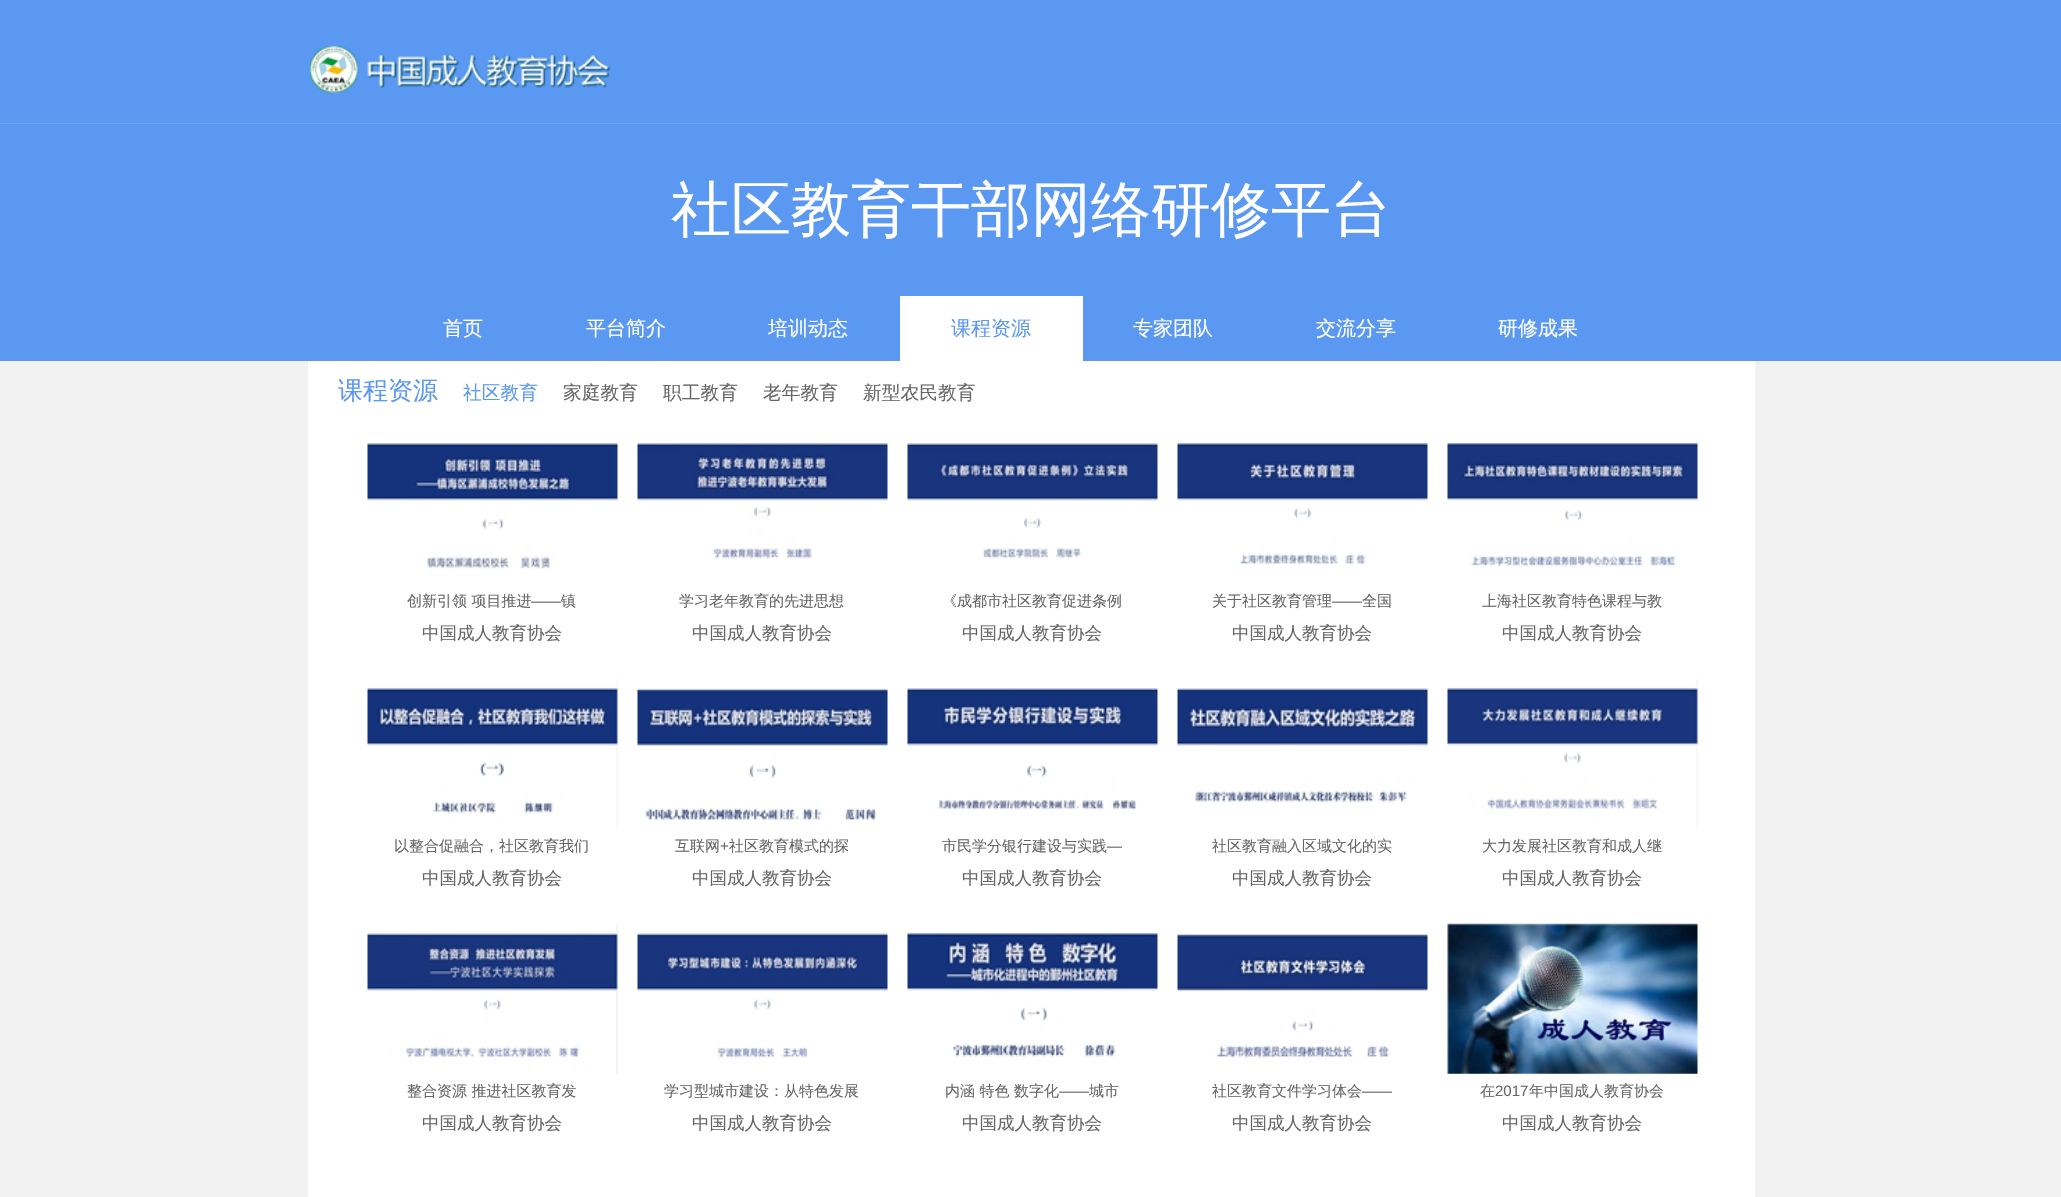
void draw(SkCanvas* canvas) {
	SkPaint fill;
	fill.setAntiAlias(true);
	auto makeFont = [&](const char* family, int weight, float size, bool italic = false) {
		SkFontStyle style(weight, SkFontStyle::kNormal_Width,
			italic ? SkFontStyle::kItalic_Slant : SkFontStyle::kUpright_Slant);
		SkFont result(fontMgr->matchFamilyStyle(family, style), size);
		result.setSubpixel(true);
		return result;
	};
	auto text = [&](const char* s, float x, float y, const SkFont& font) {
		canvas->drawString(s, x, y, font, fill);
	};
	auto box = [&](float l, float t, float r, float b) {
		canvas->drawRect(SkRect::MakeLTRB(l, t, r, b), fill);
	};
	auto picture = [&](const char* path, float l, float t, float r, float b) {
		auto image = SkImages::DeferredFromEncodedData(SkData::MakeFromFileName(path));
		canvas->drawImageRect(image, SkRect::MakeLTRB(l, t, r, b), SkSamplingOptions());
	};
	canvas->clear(0xFFF2F2F2);
	fill.setColor(0xFF5B98F1);
	box(0, 0, 2061, 361);
	fill.setColor(0xFF67A5F0);
	box(0, 123, 2061, 124);
	picture("image0.png", 309, 46, 611, 93);
	fill.setColor(0xFFFFFFFF);
	box(900, 296, 1083, 361);
	box(308, 361, 1755, 1197);
	picture("image1.png", 367, 443, 618, 569);
	picture("image2.png", 637, 442, 888, 559);
	picture("image3.png", 907, 443, 1158, 559);
	picture("image4.png", 1177, 442, 1428, 565);
	picture("image5.png", 1447, 442, 1698, 567);
	picture("image6.png", 367, 679, 618, 829);
	picture("image7.png", 637, 688, 888, 824);
	picture("image8.png", 907, 688, 1158, 810);
	picture("image9.png", 1177, 688, 1428, 803);
	picture("image10.png", 1447, 679, 1698, 829);
	picture("image11.png", 367, 924, 618, 1074);
	picture("image12.png", 637, 933, 888, 1059);
	picture("image13.png", 907, 932, 1158, 1057);
	picture("image14.png", 1177, 933, 1428, 1059);
	picture("image15.png", 1447, 923, 1698, 1074);
	auto font1 = makeFont("WenQuanYi Zen Hei", 500, 60);
	text("社区教育干部网络研修平台", 671, 230, font1);
	auto font2 = makeFont("WenQuanYi Zen Hei", 500, 20);
	text("首页", 443, 335, font2);
	text("平台简介", 586, 335, font2);
	text("培训动态", 768, 335, font2);
	fill.setColor(0xFF5B98F1);
	text("课程资源", 951, 335, font2);
	fill.setColor(0xFFFFFFFF);
	text("专家团队", 1133, 335, font2);
	text("交流分享", 1316, 335, font2);
	text("研修成果", 1498, 335, font2);
	auto font3 = makeFont("WenQuanYi Zen Hei", 500, 25);
	fill.setColor(0xFF5B98F1);
	text("课程资源", 338, 399, font3);
	auto font4 = makeFont("WenQuanYi Zen Hei", 500, 18.75f);
	text("社区教育", 463, 399, font4);
	fill.setColor(0xFF666666);
	text("家庭教育", 563, 399, font4);
	text("职工教育", 663, 399, font4);
	text("老年教育", 763, 399, font4);
	text("新型农民教育", 863, 399, font4);
	auto font5 = makeFont("WenQuanYi Zen Hei", 500, 15);
	text("创新引领 项目推进", 407, 606, font5);
	auto font6 = makeFont("Liberation Sans", 400, 15);
	text("——", 531, 606, font6);
	text("镇", 561, 606, font5);
	auto font7 = makeFont("WenQuanYi Zen Hei", 500, 17.5f);
	text("中国成人教育协会", 422, 639, font7);
	text("学习老年教育的先进思想", 679, 606, font5);
	text("中国成人教育协会", 692, 639, font7);
	text("《成都市社区教育促进条例", 942, 606, font5);
	text("中国成人教育协会", 962, 639, font7);
	text("关于社区教育管理", 1212, 606, font5);
	text("——", 1332, 606, font6);
	text("全国", 1362, 606, font5);
	text("中国成人教育协会", 1232, 639, font7);
	text("上海社区教育特色课程与教", 1482, 606, font5);
	text("中国成人教育协会", 1502, 639, font7);
	text("以整合促融合，社区教育我们", 394, 851, font5);
	text("中国成人教育协会", 422, 884, font7);
	text("互联网", 675, 851, font5);
	text("+", 720, 851, font6);
	text("社区教育模式的探", 729, 851, font5);
	text("中国成人教育协会", 692, 884, font7);
	text("市民学分银行建设与实践", 942, 851, font5);
	text("—", 1107, 851, font6);
	text("中国成人教育协会", 962, 884, font7);
	text("社区教育融入区域文化的实", 1212, 851, font5);
	text("中国成人教育协会", 1232, 884, font7);
	text("大力发展社区教育和成人继", 1482, 851, font5);
	text("中国成人教育协会", 1502, 884, font7);
	text("整合资源 推进社区教育发", 407, 1096, font5);
	text("中国成人教育协会", 422, 1129, font7);
	text("学习型城市建设：从特色发展", 664, 1096, font5);
	text("中国成人教育协会", 692, 1129, font7);
	text("内涵 特色 数字化", 945, 1096, font5);
	text("——", 1059, 1096, font6);
	text("城市", 1089, 1096, font5);
	text("中国成人教育协会", 962, 1129, font7);
	text("社区教育文件学习体会", 1212, 1096, font5);
	text("——", 1362, 1096, font6);
	text("中国成人教育协会", 1232, 1129, font7);
	text("在", 1480, 1096, font5);
	text("2017", 1495, 1096, font6);
	text("年中国成人教育协会", 1529, 1096, font5);
	text("中国成人教育协会", 1502, 1129, font7);
}
